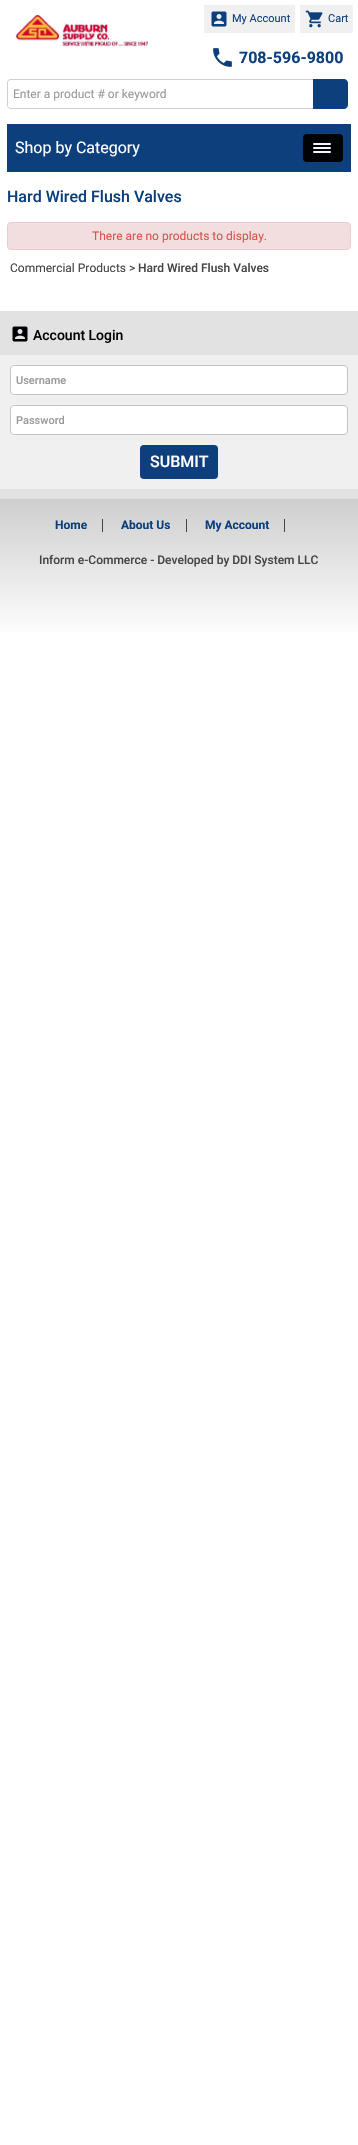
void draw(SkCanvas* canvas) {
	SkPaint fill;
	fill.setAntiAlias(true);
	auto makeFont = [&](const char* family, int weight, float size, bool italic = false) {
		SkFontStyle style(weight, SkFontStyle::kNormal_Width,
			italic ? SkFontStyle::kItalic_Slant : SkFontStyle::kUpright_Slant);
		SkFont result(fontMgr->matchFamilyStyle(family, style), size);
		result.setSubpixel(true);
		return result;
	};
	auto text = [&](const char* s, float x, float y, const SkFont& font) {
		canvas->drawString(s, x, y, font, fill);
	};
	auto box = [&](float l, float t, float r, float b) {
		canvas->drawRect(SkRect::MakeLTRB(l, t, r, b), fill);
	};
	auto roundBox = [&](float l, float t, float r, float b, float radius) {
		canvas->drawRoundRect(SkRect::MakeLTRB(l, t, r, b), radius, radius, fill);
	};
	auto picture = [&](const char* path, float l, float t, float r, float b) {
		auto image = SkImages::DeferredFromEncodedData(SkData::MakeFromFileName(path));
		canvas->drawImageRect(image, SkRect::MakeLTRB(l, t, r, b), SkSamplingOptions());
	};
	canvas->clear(0xFFFFFFFF);
	picture("image0.png", 15, 15, 148, 47);
	fill.setColor(0xFFF0F0F0);
	box(204, 5, 295, 33);
	picture("image1.png", 211, 11, 227, 27);
	box(300, 5, 353, 33);
	picture("image2.png", 305, 10, 323, 28);
	picture("image3.png", 213, 48, 232, 67);
	fill.setColor(0xFFCECECE);
	canvas->drawPath(SkPathBuilder(SkPathFillType::kEvenOdd).moveTo(11, 79).lineTo(313, 79).lineTo(313, 109).lineTo(11, 109).cubicTo(9, 109, 7, 107, 7, 105).lineTo(7, 83).cubicTo(7, 81, 9, 79, 11, 79).close().moveTo(11, 80).lineTo(313, 80).lineTo(313, 108).lineTo(11, 108).cubicTo(9, 108, 8, 107, 8, 105).lineTo(8, 83).cubicTo(8, 81, 9, 80, 11, 80).close().detach(), fill);
	fill.setColor(0xFF0C3F7B);
	canvas->drawPath(SkPathBuilder().moveTo(313, 79).lineTo(344, 79).cubicTo(346, 79, 348, 81, 348, 83).lineTo(348, 105).cubicTo(348, 107, 346, 109, 344, 109).lineTo(313, 109).close().detach(), fill);
	box(7, 124, 351, 172);
	fill.setColor(0xFF010306);
	roundBox(303, 134, 343, 162, 4);
	fill.setColor(0xFFF5F5F5);
	roundBox(313, 143, 331, 145, 1);
	roundBox(313, 147, 331, 149, 1);
	roundBox(313, 151, 331, 153, 1);
	fill.setColor(0xFFF2DEDE);
	canvas->drawRoundRect(SkRect::MakeLTRB(7.5f, 222.5f, 350.5f, 249.5f), 3.5f, 3.5f, fill);
	fill.setStyle(SkPaint::kStroke_Style);
	fill.setStrokeWidth(1);
	fill.setColor(0xFFEBCCD1);
	canvas->drawRoundRect(SkRect::MakeLTRB(7.5f, 222.5f, 350.5f, 249.5f), 3.5f, 3.5f, fill);
	fill.setStyle(SkPaint::kFill_Style);
	fill.setColor(0xFFF0F0F0);
	box(0, 355, 358, 489);
	fill.setColor(0xFFE2E2E2);
	box(0, 311, 358, 355);
	picture("image4.png", 12, 326, 28, 342);
	fill.setColor(0xFFFFFFFF);
	canvas->drawRoundRect(SkRect::MakeLTRB(10.5f, 365.5f, 347.5f, 394.5f), 3.5f, 3.5f, fill);
	fill.setStyle(SkPaint::kStroke_Style);
	fill.setColor(0xFFC4C4C4);
	canvas->drawRoundRect(SkRect::MakeLTRB(10.5f, 365.5f, 347.5f, 394.5f), 3.5f, 3.5f, fill);
	fill.setStyle(SkPaint::kFill_Style);
	fill.setColor(0xFFFFFFFF);
	canvas->drawRoundRect(SkRect::MakeLTRB(10.5f, 405.5f, 347.5f, 434.5f), 3.5f, 3.5f, fill);
	fill.setStyle(SkPaint::kStroke_Style);
	fill.setColor(0xFFC4C4C4);
	canvas->drawRoundRect(SkRect::MakeLTRB(10.5f, 405.5f, 347.5f, 434.5f), 3.5f, 3.5f, fill);
	fill.setStyle(SkPaint::kFill_Style);
	fill.setColor(0xFF0C3F7B);
	roundBox(140, 445, 218, 479, 4);
	{
		const SkColor colors[] = {0xFFCECECE, 0xFFFFFFFF};
		const float stops[] = {0, 1};
		const SkPoint ends[] = {{179, 499}, {179, 639}};
		fill.setShader(SkGradientShader::MakeLinear(ends, colors, stops, 2, SkTileMode::kClamp));
		fill.setAlpha(255);
	}
	box(0, 499, 358, 632);
	fill.setShader(nullptr);
	fill.setColor(0xFFE2E2E2);
	box(0, 489, 358, 499);
	fill.setColor(0xFF444444);
	box(102, 519, 103, 532);
	box(186, 519, 187, 532);
	box(284, 519, 285, 532);
	auto font1 = makeFont("Roboto", 400, 11);
	fill.setColor(0xFF0C3F7B);
	text("My Account", 232, 22, font1);
	text("Cart", 328, 22, font1);
	auto font2 = makeFont("Roboto", 700, 16);
	text("708-596-9800", 239, 63, font2);
	auto font3 = makeFont("Roboto", 400, 12);
	fill.setColor(0xFF999999);
	text("Enter a product # or keyword", 13, 98, font3);
	auto font4 = makeFont("Roboto", 400, 16);
	fill.setColor(0xFFFFFFFF);
	text("Shop by Category", 15, 153, font4);
	auto font5 = makeFont("Roboto", 500, 16);
	fill.setColor(0xFF0C3F7B);
	text("Hard Wired Flush Valves", 7, 202, font5);
	fill.setColor(0xFFD9534F);
	text("There are no products to display.", 92, 240, font3);
	fill.setColor(0xFF444444);
	text("Commercial Products >", 10, 272, font3);
	auto font6 = makeFont("Roboto", 500, 12);
	text("Hard Wired Flush Valves", 138, 272, font6);
	auto font7 = makeFont("Roboto", 500, 14);
	fill.setColor(0xFF010306);
	text("Account Login", 33, 340, font7);
	auto font8 = makeFont("Roboto", 500, 11);
	fill.setColor(0xFF999999);
	text("Username", 16, 384, font8);
	text("Password", 16, 424, font8);
	fill.setColor(0xFFFFFFFF);
	text("SUBMIT", 150, 467, font5);
	auto font9 = makeFont("Roboto", 700, 12);
	fill.setColor(0xFF0C3F7B);
	text("Home", 55, 529, font9);
	text("About Us", 121, 529, font9);
	text("My Account", 205, 529, font9);
	fill.setColor(0xFF444444);
	text("Inform e-Commerce - Developed by DDI System LLC", 39, 564, font6);
}
